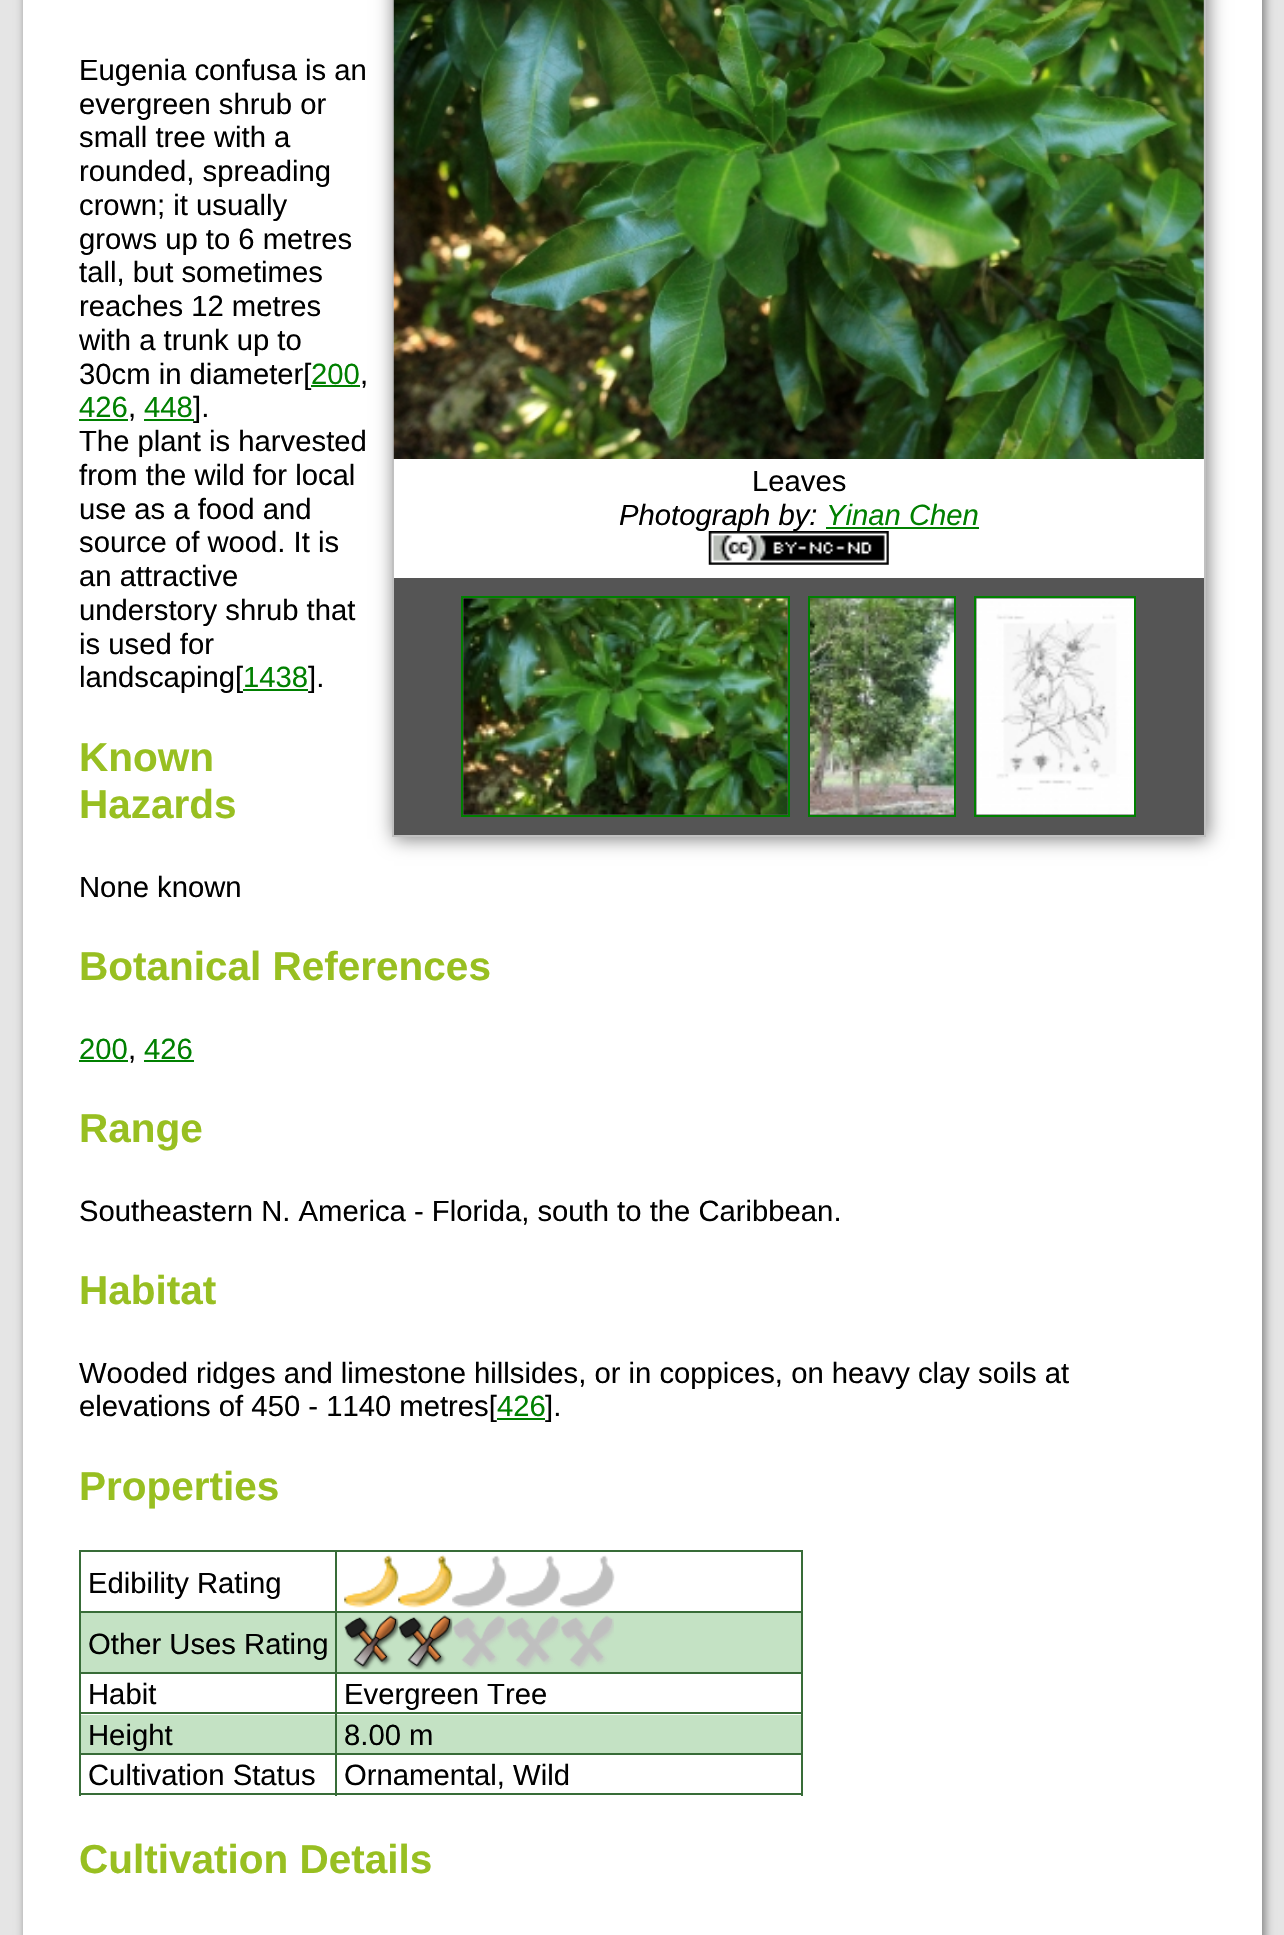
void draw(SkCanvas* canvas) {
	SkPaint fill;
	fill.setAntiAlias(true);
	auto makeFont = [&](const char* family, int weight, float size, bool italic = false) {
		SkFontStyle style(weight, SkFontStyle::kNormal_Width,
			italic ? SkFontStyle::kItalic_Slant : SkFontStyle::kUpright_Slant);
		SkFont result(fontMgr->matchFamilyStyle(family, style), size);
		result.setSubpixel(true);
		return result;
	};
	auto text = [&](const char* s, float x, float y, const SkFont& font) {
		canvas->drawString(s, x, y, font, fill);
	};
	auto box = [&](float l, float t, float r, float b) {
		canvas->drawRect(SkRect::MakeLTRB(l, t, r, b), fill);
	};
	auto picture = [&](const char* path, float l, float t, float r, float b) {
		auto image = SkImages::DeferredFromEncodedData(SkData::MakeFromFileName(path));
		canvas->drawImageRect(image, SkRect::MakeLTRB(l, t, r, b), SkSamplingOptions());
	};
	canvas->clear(0xFFE5E5E5);
	fill.setColor(0xFF808080);
	fill.setMaskFilter(SkMaskFilter::MakeBlur(kNormal_SkBlurStyle, 4.5f));
	canvas->drawRect(SkRect::MakeLTRB(25, -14, 1265, 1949), fill);
	fill.setMaskFilter(nullptr);
	fill.setColor(0xFFFFFFFF);
	box(23, 0, 1262, 1935);
	fill.setColor(0xFF008000);
	box(311, 385, 360, 387);
	box(79, 419, 128, 421);
	fill.setColor(0xFF808080);
	fill.setMaskFilter(SkMaskFilter::MakeBlur(kNormal_SkBlurStyle, 9));
	canvas->drawRect(SkRect::MakeLTRB(394, -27, 1208, 839), fill);
	fill.setMaskFilter(nullptr);
	fill.setStyle(SkPaint::kStroke_Style);
	fill.setStrokeWidth(2);
	fill.setColor(0xFFC0C0C0);
	canvas->drawRect(SkRect::MakeLTRB(393, -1, 1205, 836), fill);
	picture("image0.png", 393, 0, 1204, 459);
	fill.setStyle(SkPaint::kFill_Style);
	fill.setColor(0xFFFFFFFF);
	box(394, 459, 1204, 578);
	fill.setColor(0xFF008000);
	box(826, 527, 979, 529);
	fill.setColor(0xFF555555);
	box(394, 578, 1204, 835);
	fill.setStyle(SkPaint::kStroke_Style);
	fill.setColor(0xFF008000);
	canvas->drawRect(SkRect::MakeLTRB(462, 597, 789, 816), fill);
	picture("image2.png", 463, 598, 788, 815);
	canvas->drawRect(SkRect::MakeLTRB(809, 597, 955, 816), fill);
	picture("image3.png", 810, 598, 954, 815);
	canvas->drawRect(SkRect::MakeLTRB(975, 597, 1135, 816), fill);
	picture("image4.png", 976, 598, 1134, 815);
	fill.setStyle(SkPaint::kFill_Style);
	box(243, 689, 308, 691);
	box(79, 1060, 128, 1062);
	box(144, 1060, 194, 1062);
	box(497, 1418, 545, 1420);
	fill.setColor(0xFF386C38);
	box(79, 1550, 803, 1552);
	box(801, 1550, 803, 1796);
	box(79, 1793, 803, 1795);
	box(79, 1550, 81, 1796);
	picture("image5.png", 344, 1554, 399, 1608);
	picture("image6.png", 398, 1554, 453, 1608);
	picture("image7.png", 452, 1555, 507, 1608);
	picture("image8.png", 506, 1555, 561, 1608);
	picture("image8.png", 560, 1555, 615, 1608);
	fill.setColor(0xFFC4E2C4);
	box(81, 1613, 801, 1672);
	fill.setColor(0xFF386C38);
	box(79, 1611, 803, 1613);
	picture("image9.png", 344, 1615, 399, 1670);
	picture("image10.png", 398, 1615, 453, 1670);
	picture("image11.png", 453, 1615, 506, 1669);
	picture("image12.png", 506, 1615, 560, 1669);
	picture("image12.png", 560, 1615, 614, 1669);
	box(79, 1672, 803, 1674);
	fill.setColor(0xFFC4E2C4);
	box(81, 1715, 801, 1753);
	fill.setColor(0xFF386C38);
	box(79, 1712, 803, 1714);
	box(79, 1753, 803, 1755);
	box(335, 1550, 337, 1796);
	auto font1 = makeFont("Liberation Sans", 400, 29.25f);
	fill.setColor(0xFF000000);
	text("Eugenia confusa is an", 79, 80, font1);
	text("evergreen shrub or", 79, 114, font1);
	text("small tree with a", 79, 147, font1);
	text("rounded, spreading", 79, 181, font1);
	text("crown; it usually", 79, 215, font1);
	text("grows up to 6 metres", 79, 249, font1);
	text("tall, but sometimes", 79, 282, font1);
	text("reaches 12 metres", 79, 316, font1);
	text("with a trunk up to", 79, 350, font1);
	text("30cm in diameter[", 79, 384, font1);
	fill.setColor(0xFF008000);
	text("200", 311, 384, font1);
	fill.setColor(0xFF000000);
	text(",", 360, 384, font1);
	fill.setColor(0xFF008000);
	text("426", 79, 417, font1);
	fill.setColor(0xFF000000);
	text(",", 128, 417, font1);
	fill.setColor(0xFF008000);
	text("448", 144, 417, font1);
	fill.setColor(0xFF000000);
	text("].", 193, 417, font1);
	fill.setColor(0xFF008000);
	box(144, 419, 194, 421);
	fill.setColor(0xFF000000);
	text("The plant is harvested", 79, 451, font1);
	text("from the wild for local", 79, 485, font1);
	text("Leaves", 752, 491, font1);
	auto font2 = makeFont("Liberation Sans", 400, 29.25f, true);
	text("Photograph by:", 619, 525, font2);
	fill.setColor(0xFF008000);
	text("Yinan Chen", 826, 525, font2);
	picture("image1.png", 708, 531, 889, 565);
	fill.setColor(0xFF000000);
	text("use as a food and", 79, 519, font1);
	text("source of wood. It is", 79, 552, font1);
	text("an attractive", 79, 586, font1);
	text("understory shrub that", 79, 620, font1);
	text("is used for", 79, 654, font1);
	text("landscaping[", 79, 687, font1);
	fill.setColor(0xFF008000);
	text("1438", 243, 687, font1);
	fill.setColor(0xFF000000);
	text("].", 308, 687, font1);
	auto font3 = makeFont("Liberation Sans", 700, 40.5f);
	fill.setColor(0xFF98BF21);
	text("Known", 79, 771, font3);
	text("Hazards", 79, 818, font3);
	fill.setColor(0xFF000000);
	text("None known", 79, 897, font1);
	fill.setColor(0xFF98BF21);
	text("Botanical References", 79, 980, font3);
	fill.setColor(0xFF008000);
	text("200", 79, 1059, font1);
	fill.setColor(0xFF000000);
	text(",", 128, 1059, font1);
	fill.setColor(0xFF008000);
	text("426", 144, 1059, font1);
	fill.setColor(0xFF98BF21);
	text("Range", 79, 1142, font3);
	fill.setColor(0xFF000000);
	text("Southeastern N. America - Florida, south to the Caribbean.", 79, 1221, font1);
	fill.setColor(0xFF98BF21);
	text("Habitat", 79, 1304, font3);
	fill.setColor(0xFF000000);
	text("Wooded ridges and limestone hillsides, or in coppices, on heavy clay soils at", 79, 1383, font1);
	text("elevations of 450 - 1140 metres[", 79, 1416, font1);
	fill.setColor(0xFF008000);
	text("426", 497, 1416, font1);
	fill.setColor(0xFF000000);
	text("].", 545, 1416, font1);
	fill.setColor(0xFF98BF21);
	text("Properties", 79, 1500, font3);
	fill.setColor(0xFF000000);
	text("Edibility Rating", 88, 1593, font1);
	text("Other Uses Rating", 88, 1654, font1);
	text("Habit", 88, 1704, font1);
	text("Evergreen Tree", 344, 1704, font1);
	text("Height", 88, 1745, font1);
	text("8.00 m", 344, 1745, font1);
	text("Cultivation Status", 88, 1785, font1);
	text("Ornamental, Wild", 344, 1785, font1);
	fill.setColor(0xFF98BF21);
	text("Cultivation Details", 79, 1873, font3);
}
